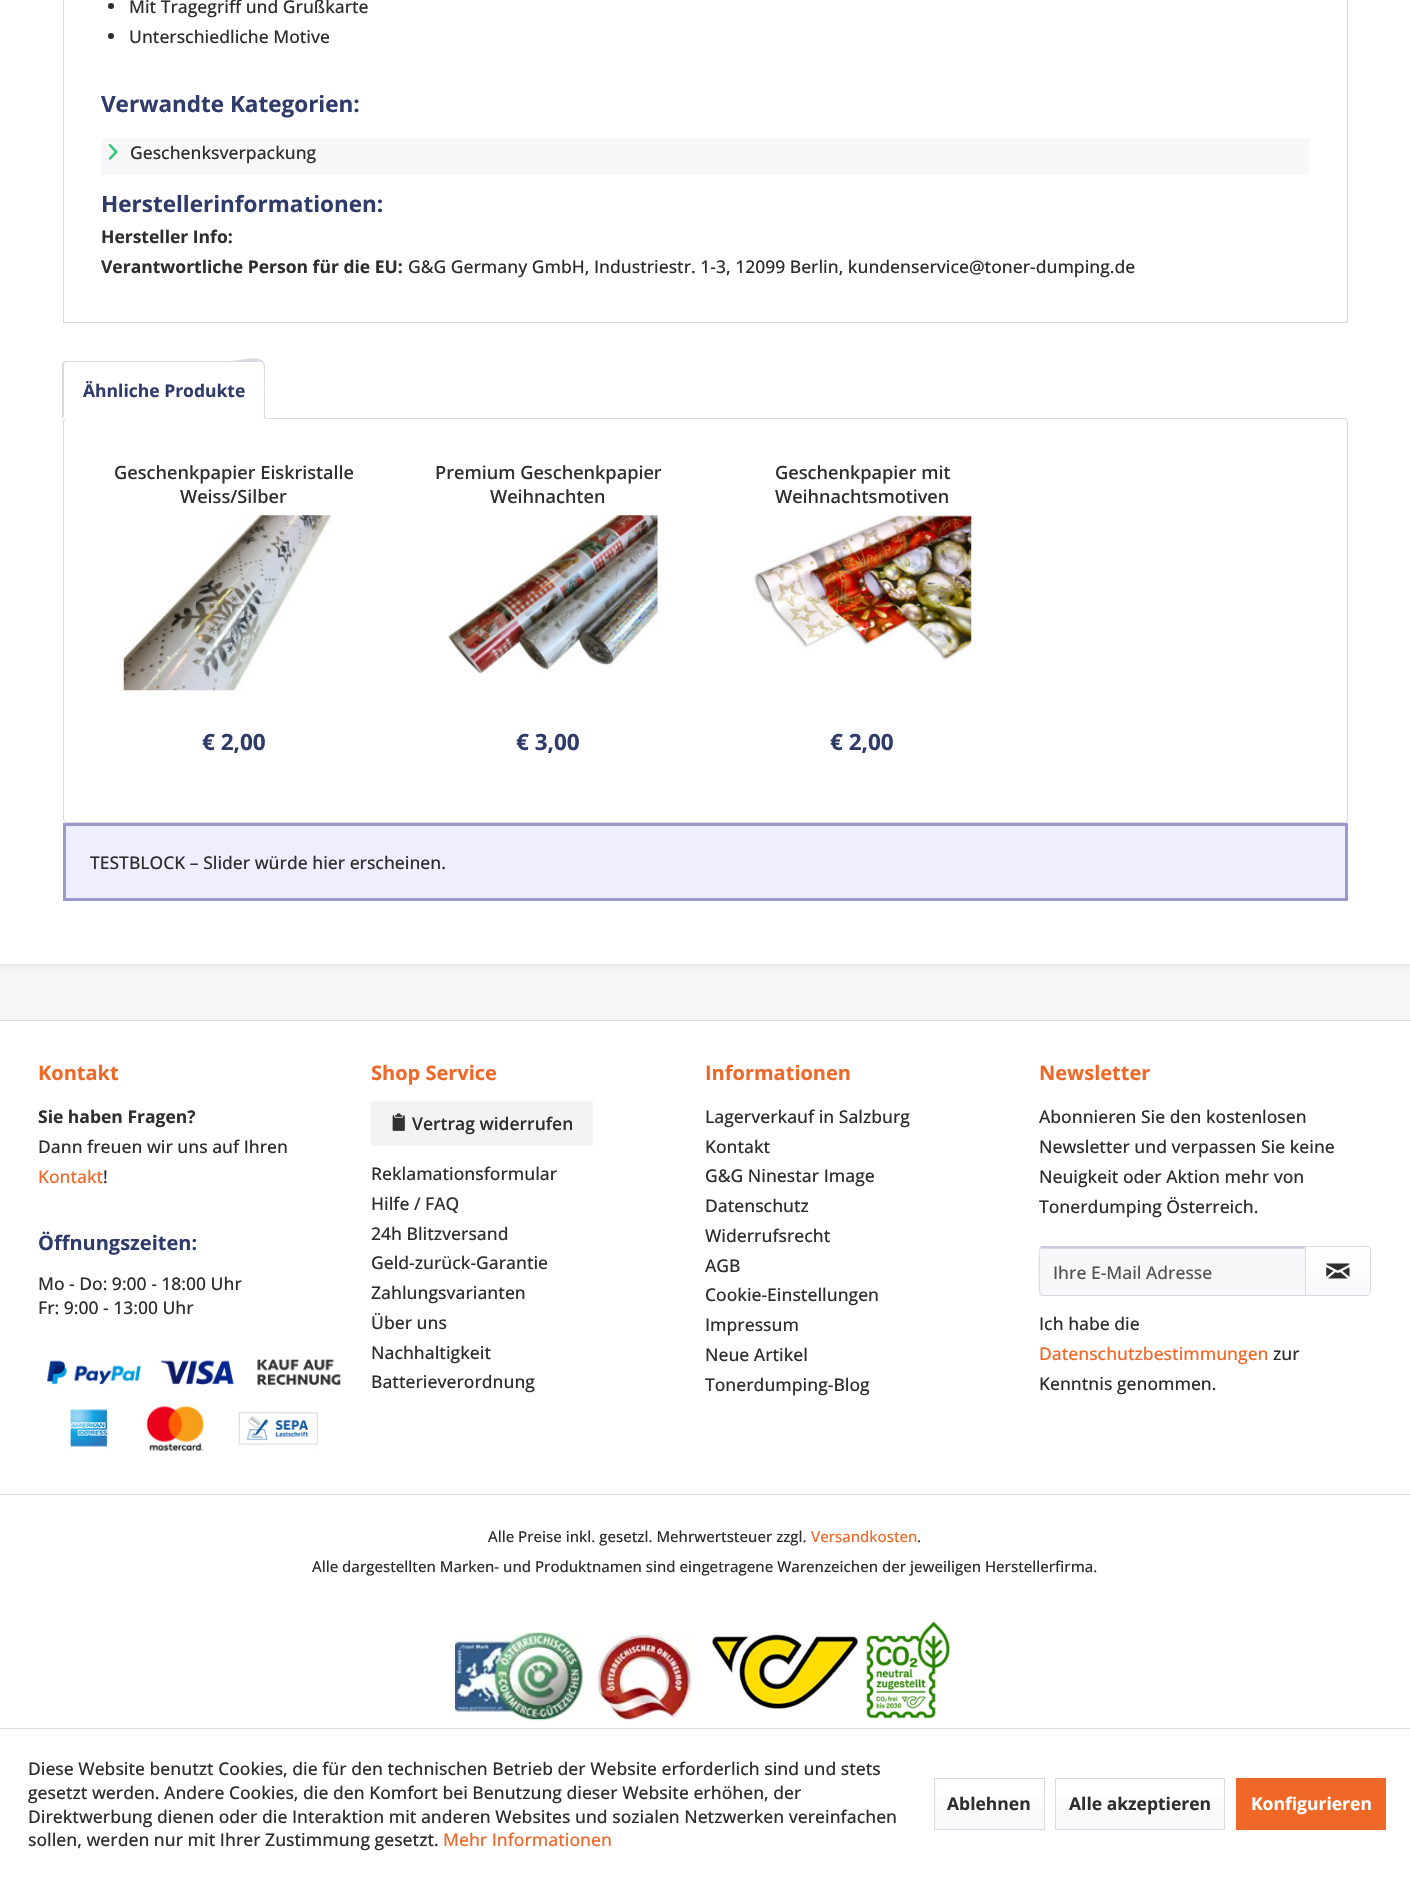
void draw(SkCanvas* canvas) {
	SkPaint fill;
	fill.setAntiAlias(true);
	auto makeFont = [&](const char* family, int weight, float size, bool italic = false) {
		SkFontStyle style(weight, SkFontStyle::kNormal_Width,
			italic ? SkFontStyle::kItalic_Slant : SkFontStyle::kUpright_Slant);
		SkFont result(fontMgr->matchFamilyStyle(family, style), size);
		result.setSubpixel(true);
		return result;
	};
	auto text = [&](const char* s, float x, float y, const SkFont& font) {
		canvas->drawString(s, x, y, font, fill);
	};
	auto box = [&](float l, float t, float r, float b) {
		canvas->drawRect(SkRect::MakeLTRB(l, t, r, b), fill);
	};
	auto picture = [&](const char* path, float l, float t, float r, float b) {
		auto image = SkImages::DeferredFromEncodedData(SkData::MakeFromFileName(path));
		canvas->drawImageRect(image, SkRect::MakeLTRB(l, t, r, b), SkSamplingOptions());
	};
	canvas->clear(0xFFF6F6F6);
	fill.setColor(0xFFDADAE5);
	fill.setMaskFilter(SkMaskFilter::MakeBlur(kNormal_SkBlurStyle, 2.5f));
	canvas->drawRect(SkRect::MakeLTRB(-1, -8, 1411, 965), fill);
	fill.setMaskFilter(nullptr);
	fill.setColor(0xFFFFFFFF);
	box(0, 0, 1410, 964);
	fill.setStyle(SkPaint::kStroke_Style);
	fill.setStrokeWidth(1);
	fill.setColor(0xFFDADAE5);
	canvas->drawRect(SkRect::MakeLTRB(63.5f, -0.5f, 1347.5f, 322.5f), fill);
	fill.setStyle(SkPaint::kFill_Style);
	fill.setColor(0xFF2E2E2E);
	canvas->drawCircle(111, 6, 3, fill);
	canvas->drawCircle(111, 36, 3, fill);
	fill.setColor(0xFFF8F8FA);
	box(101, 138, 1309, 175);
	picture("image0.png", 108, 144, 118, 160);
	fill.setStyle(SkPaint::kStroke_Style);
	fill.setColor(0xFFDADAE5);
	canvas->drawRoundRect(SkRect::MakeLTRB(63.5f, 418.5f, 1347.5f, 822.5f), 3.5f, 3.5f, fill);
	fill.setStyle(SkPaint::kFill_Style);
	fill.setColor(0xFFFFFFFF);
	canvas->drawPath(SkPathBuilder().moveTo(67, 361).lineTo(261, 361).cubicTo(263, 361, 265, 363, 265, 365).lineTo(265, 419).lineTo(63, 419).lineTo(63, 365).cubicTo(63, 363, 65, 361, 67, 361).close().detach(), fill);
	fill.setColor(0xFFDADAE5);
	canvas->drawPath(SkPathBuilder().moveTo(66, 362).lineTo(65, 363).lineTo(63, 362).lineTo(65, 361).lineTo(229, 361).cubicTo(241, 361, 256, 354, 264, 362).lineTo(263, 363).lineTo(261, 362).close().detach(), fill);
	canvas->drawPath(SkPathBuilder().moveTo(265, 419).lineTo(265, 365).lineTo(264, 362).lineTo(263, 363).cubicTo(265, 365, 264, 411, 264, 418).close().detach(), fill);
	fill.setColor(0xFFFFFFFF);
	canvas->drawPath(SkPathBuilder().moveTo(265, 419).lineTo(264, 418).lineTo(64, 418).lineTo(64, 417).lineTo(62, 419).close().detach(), fill);
	fill.setColor(0xFFDADAE5);
	canvas->drawPath(SkPathBuilder().moveTo(62, 419).lineTo(62, 363).lineTo(63, 362).lineTo(65, 363).lineTo(64, 365).lineTo(64, 417).close().detach(), fill);
	picture("image1.png", 123, 515, 332, 691);
	picture("image2.png", 448, 515, 658, 674);
	picture("image3.png", 752, 515, 972, 663);
	fill.setColor(0xFFEEEEFF);
	canvas->drawRect(SkRect::MakeLTRB(64.5f, 824.5f, 1346.5f, 899.5f), fill);
	fill.setStyle(SkPaint::kStroke_Style);
	fill.setStrokeWidth(3);
	fill.setColor(0xFF9999CC);
	canvas->drawRect(SkRect::MakeLTRB(64.5f, 824.5f, 1346.5f, 899.5f), fill);
	fill.setStyle(SkPaint::kFill_Style);
	fill.setColor(0xFFFFFFFF);
	box(0, 1021, 1410, 1728);
	fill.setColor(0xFFDADAE5);
	box(0, 1020, 1410, 1021);
	box(0, 1494, 1410, 1495);
	picture("image4.png", 47, 1359, 341, 1451);
	fill.setColor(0xFFF3F3F3);
	box(371, 1101, 593, 1146);
	picture("image5.png", 392, 1113, 405, 1131);
	fill.setColor(0xFFF8F8FA);
	canvas->drawPath(SkPathBuilder().moveTo(1042.5f, 1248).lineTo(1305, 1248).lineTo(1305, 1295).lineTo(1042.5f, 1295).cubicTo(1041, 1295, 1040, 1294, 1040, 1292.5f).lineTo(1040, 1250.5f).cubicTo(1040, 1249, 1041, 1248, 1042.5f, 1248).close().detach(), fill);
	fill.setColor(0xFFDADAE5);
	canvas->drawPath(SkPathBuilder().moveTo(1042, 1249).lineTo(1305, 1249).lineTo(1305, 1248).lineTo(1042, 1248).cubicTo(1041, 1248, 1040, 1249, 1040, 1251).cubicTo(1040, 1250, 1041, 1249, 1042, 1249).close().detach(), fill);
	fill.setColor(0xFFCBCBDB);
	canvas->drawPath(SkPathBuilder().moveTo(1042, 1248).lineTo(1041, 1248).lineTo(1040, 1247).lineTo(1041, 1246).lineTo(1306, 1246).lineTo(1304, 1248).close().detach(), fill);
	fill.setColor(0xFFDADAE5);
	canvas->drawPath(SkPathBuilder().moveTo(1306, 1246).lineTo(1306, 1296).lineTo(1305, 1295).lineTo(1305, 1248).lineTo(1304, 1248).close().detach(), fill);
	canvas->drawPath(SkPathBuilder().moveTo(1306, 1296).lineTo(1305, 1295).lineTo(1042, 1295).lineTo(1041, 1294).lineTo(1040, 1295).lineTo(1042, 1296).close().detach(), fill);
	canvas->drawPath(SkPathBuilder().moveTo(1040, 1295).cubicTo(1038, 1294, 1038, 1250, 1040, 1247).lineTo(1041, 1248).cubicTo(1039, 1250, 1040, 1257, 1040, 1257).cubicTo(1040, 1262, 1039, 1292, 1041, 1294).close().detach(), fill);
	{
		const SkColor colors[] = {0xFFFFFFFF, 0xFFF8F8FA};
		const float stops[] = {0, 1};
		const SkPoint ends[] = {{1338, 1248}, {1338, 1295}};
		fill.setShader(SkGradientShader::MakeLinear(ends, colors, stops, 2, SkTileMode::kClamp));
		fill.setAlpha(255);
	}
	canvas->drawPath(SkPathBuilder().moveTo(1306, 1248).lineTo(1367.5f, 1248).cubicTo(1369, 1248, 1370, 1249, 1370, 1250.5f).lineTo(1370, 1292.5f).cubicTo(1370, 1294, 1369, 1295, 1367.5f, 1295).lineTo(1306, 1295).close().detach(), fill);
	fill.setStyle(SkPaint::kStroke_Style);
	fill.setStrokeWidth(1);
	fill.setShader(nullptr);
	fill.setColor(0xFFDADAE5);
	canvas->drawPath(SkPathBuilder().moveTo(1305.5f, 1246.5f).lineTo(1367, 1246.5f).cubicTo(1369, 1246.5f, 1370.5f, 1248, 1370.5f, 1250).lineTo(1370.5f, 1292).cubicTo(1370.5f, 1294, 1369, 1295.5f, 1367, 1295.5f).lineTo(1305.5f, 1295.5f).close().detach(), fill);
	picture("image6.png", 1326, 1263, 1350, 1279);
	picture("image7.png", 455, 1632, 583, 1721);
	picture("image8.png", 594, 1633, 693, 1721);
	picture("image9.png", 712, 1621, 951, 1719);
	fill.setStyle(SkPaint::kFill_Style);
	fill.setColor(0xFFFFFFFF);
	box(0, 1729, 1410, 1878);
	fill.setColor(0xFFDADAE5);
	box(0, 1728, 1410, 1729);
	{
		const SkColor colors[] = {0xFFFFFFFF, 0xFFF8F8FA};
		const float stops[] = {0, 1};
		const SkPoint ends[] = {{989, 1779}, {989, 1829}};
		fill.setShader(SkGradientShader::MakeLinear(ends, colors, stops, 2, SkTileMode::kClamp));
		fill.setAlpha(255);
	}
	box(935, 1797, 1044, 1829);
	fill.setStyle(SkPaint::kStroke_Style);
	fill.setShader(nullptr);
	fill.setColor(0xFFDADAE5);
	canvas->drawRect(SkRect::MakeLTRB(934.5f, 1778.5f, 1044.5f, 1829.5f), fill);
	fill.setStyle(SkPaint::kFill_Style);
	{
		const SkColor colors[] = {0xFFFFFFFF, 0xFFF8F8FA};
		const float stops[] = {0, 1};
		const SkPoint ends[] = {{1140, 1779}, {1140, 1829}};
		fill.setShader(SkGradientShader::MakeLinear(ends, colors, stops, 2, SkTileMode::kClamp));
		fill.setAlpha(255);
	}
	box(1056, 1797, 1224, 1829);
	fill.setStyle(SkPaint::kStroke_Style);
	fill.setShader(nullptr);
	fill.setColor(0xFFDADAE5);
	canvas->drawRect(SkRect::MakeLTRB(1055.5f, 1778.5f, 1224.5f, 1829.5f), fill);
	fill.setStyle(SkPaint::kFill_Style);
	fill.setColor(0xFFF06828);
	box(1236, 1778, 1386, 1830);
	auto font1 = makeFont("Open Sans", 500, 17.5f);
	fill.setColor(0xFF2E2E2E);
	text("Mit Tragegriff und Grußkarte", 129, 13, font1);
	text("Unterschiedliche Motive", 129, 43, font1);
	auto font2 = makeFont("Open Sans", 700, 22.5f);
	fill.setColor(0xFF2F3B6A);
	text("Verwandte Kategorien:", 101, 112, font2);
	fill.setColor(0xFF2E2E2E);
	text("Geschenksverpackung", 130, 159, font1);
	fill.setColor(0xFF2F3B6A);
	text("Herstellerinformationen:", 101, 212, font2);
	auto font3 = makeFont("Open Sans", 700, 17.5f);
	fill.setColor(0xFF2E2E2E);
	text("Hersteller Info:", 101, 243, font3);
	text("Verantwortliche Person für die EU:", 101, 273, font3);
	text("G&G Germany GmbH, Industriestr. 1-3, 12099 Berlin, kundenservice@toner-dumping.de", 408, 273, font1);
	fill.setColor(0xFF2F3B6A);
	text("Ähnliche Produkte", 83, 397, font3);
	auto font4 = makeFont("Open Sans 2", 500, 18.25f);
	fill.setColor(0xFF2E2E2E);
	text("Geschenkpapier Eiskristalle", 114, 479, font4);
	text("Weiss/Silber", 180, 503, font4);
	fill.setColor(0xFF2F3B6A);
	text("€ 2,00", 202, 750, font2);
	fill.setColor(0xFF2E2E2E);
	text("Premium Geschenkpapier", 435, 479, font4);
	text("Weihnachten", 490, 503, font4);
	fill.setColor(0xFF2F3B6A);
	text("€ 3,00", 516, 750, font2);
	fill.setColor(0xFF2E2E2E);
	text("Geschenkpapier mit", 775, 479, font4);
	text("Weihnachtsmotiven", 775, 503, font4);
	fill.setColor(0xFF2F3B6A);
	text("€ 2,00", 830, 750, font2);
	fill.setColor(0xFF2E2E2E);
	text("TESTBLOCK – Slider würde hier erscheinen.", 90, 869, font1);
	auto font5 = makeFont("Open Sans", 700, 20);
	fill.setColor(0xFFF06828);
	text("Kontakt", 38, 1080, font5);
	fill.setColor(0xFF2E2E2E);
	text("Sie haben Fragen?", 38, 1123, font3);
	text("Dann freuen wir uns auf Ihren", 38, 1153, font1);
	fill.setColor(0xFFF06828);
	text("Kontakt", 38, 1183, font1);
	fill.setColor(0xFF2E2E2E);
	text("!", 103, 1183, font1);
	fill.setColor(0xFF2F3B6A);
	text("Öffnungszeiten:", 38, 1250, font5);
	fill.setColor(0xFF2E2E2E);
	text("Mo - Do: 9:00 - 18:00 Uhr", 38, 1290, font1);
	text("Fr: 9:00 - 13:00 Uhr", 38, 1314, font1);
	fill.setColor(0xFFF06828);
	text("Shop Service", 371, 1080, font5);
	auto font6 = makeFont("Open Sans", 600, 17.5f);
	fill.setColor(0xFF2E2E2E);
	text("Vertrag widerrufen", 412, 1130, font6);
	text("Reklamationsformular", 371, 1180, font1);
	text("Hilfe / FAQ", 371, 1210, font1);
	text("24h Blitzversand", 371, 1240, font1);
	text("Geld-zurück-Garantie", 371, 1269, font1);
	text("Zahlungsvarianten", 371, 1299, font1);
	text("Über uns", 371, 1329, font1);
	text("Nachhaltigkeit", 371, 1359, font1);
	text("Batterieverordnung", 371, 1388, font1);
	fill.setColor(0xFFF06828);
	text("Informationen", 705, 1080, font5);
	fill.setColor(0xFF2E2E2E);
	text("Lagerverkauf in Salzburg", 705, 1123, font1);
	text("Kontakt", 705, 1153, font1);
	text("G&G Ninestar Image", 705, 1182, font1);
	text("Datenschutz", 705, 1212, font1);
	text("Widerrufsrecht", 705, 1242, font1);
	text("AGB", 705, 1272, font1);
	text("Cookie-Einstellungen", 705, 1301, font1);
	text("Impressum", 705, 1331, font1);
	text("Neue Artikel", 705, 1361, font1);
	text("Tonerdumping-Blog", 705, 1391, font1);
	fill.setColor(0xFFF06828);
	text("Newsletter", 1039, 1080, font5);
	fill.setColor(0xFF2E2E2E);
	text("Abonnieren Sie den kostenlosen", 1039, 1123, font1);
	text("Newsletter und verpassen Sie keine", 1039, 1153, font1);
	text("Neuigkeit oder Aktion mehr von", 1039, 1183, font1);
	text("Tonerdumping Österreich.", 1039, 1213, font1);
	fill.setColor(0xFF545454);
	text("Ihre E-Mail Adresse", 1053, 1279, font1);
	fill.setColor(0xFF2E2E2E);
	text("Ich habe die", 1039, 1330, font1);
	fill.setColor(0xFFF06828);
	text("Datenschutzbestimmungen", 1039, 1360, font1);
	fill.setColor(0xFF2E2E2E);
	text("zur", 1273, 1360, font1);
	text("Kenntnis genommen.", 1039, 1390, font1);
	auto font7 = makeFont("Open Sans", 500, 15);
	text("Alle Preise inkl. gesetzl. Mehrwertsteuer zzgl.", 488, 1542, font7);
	fill.setColor(0xFFF06828);
	text("Versandkosten", 811, 1542, font7);
	fill.setColor(0xFF2E2E2E);
	text(".", 917, 1542, font7);
	text("Alle dargestellten Marken- und Produktnamen sind eingetragene Warenzeichen der jeweiligen Herstellerfirma.", 312, 1572, font7);
	text("Diese Website benutzt Cookies, die für den technischen Betrieb der Website erforderlich sind und stets", 28, 1775, font1);
	text("gesetzt werden. Andere Cookies, die den Komfort bei Benutzung dieser Website erhöhen, der", 28, 1799, font1);
	text("Direktwerbung dienen oder die Interaktion mit anderen Websites und sozialen Netzwerken vereinfachen", 28, 1823, font1);
	text("sollen, werden nur mit Ihrer Zustimmung gesetzt.", 28, 1846, font1);
	fill.setColor(0xFFF06828);
	text("Mehr Informationen", 443, 1846, font1);
	fill.setColor(0xFF2E2E2E);
	text("Ablehnen", 947, 1810, font3);
	text("Alle akzeptieren", 1069, 1810, font3);
	fill.setColor(0xFFFFFFFF);
	text("Konfigurieren", 1251, 1810, font3);
}
